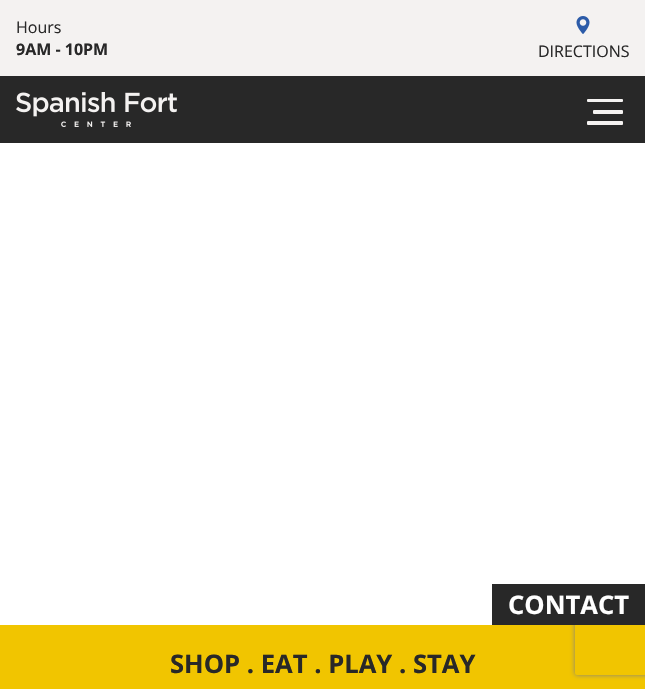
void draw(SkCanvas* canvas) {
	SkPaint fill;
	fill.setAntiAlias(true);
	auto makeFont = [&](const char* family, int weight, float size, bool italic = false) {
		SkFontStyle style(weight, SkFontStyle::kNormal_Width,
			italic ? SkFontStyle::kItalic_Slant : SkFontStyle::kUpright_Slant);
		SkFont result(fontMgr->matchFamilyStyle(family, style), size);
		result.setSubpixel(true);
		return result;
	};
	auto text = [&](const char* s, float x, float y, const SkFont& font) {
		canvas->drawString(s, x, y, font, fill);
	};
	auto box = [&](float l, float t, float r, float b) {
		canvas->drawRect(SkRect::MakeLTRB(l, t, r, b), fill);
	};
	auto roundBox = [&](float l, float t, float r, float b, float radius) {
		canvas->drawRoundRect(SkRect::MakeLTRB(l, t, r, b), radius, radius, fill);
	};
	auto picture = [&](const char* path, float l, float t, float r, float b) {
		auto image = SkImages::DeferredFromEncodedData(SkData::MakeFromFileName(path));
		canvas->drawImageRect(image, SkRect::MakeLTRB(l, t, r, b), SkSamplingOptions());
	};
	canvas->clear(0xFFFFFFFF);
	fill.setColor(0xFF282828);
	box(0, 76, 645, 143);
	fill.setColor(0xFFF4F2F1);
	box(0, 0, 645, 76);
	picture("image0.png", 576, 16, 590, 34);
	picture("image1.png", 16, 92, 177, 127);
	roundBox(587, 99, 623, 102, 1);
	roundBox(593, 110, 623, 114, 1);
	roundBox(587, 121, 623, 125, 1);
	fill.setColor(0xFFF1C500);
	box(0, 625, 645, 689);
	canvas->save();
	canvas->clipPath(SkPathBuilder(SkPathFillType::kEvenOdd).moveTo(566, 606).lineTo(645, 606).lineTo(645, 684).lineTo(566, 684).close().moveTo(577, 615).lineTo(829, 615).cubicTo(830, 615, 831, 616, 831, 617).lineTo(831, 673).cubicTo(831, 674, 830, 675, 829, 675).lineTo(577, 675).cubicTo(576, 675, 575, 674, 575, 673).lineTo(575, 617).cubicTo(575, 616, 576, 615, 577, 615).close().detach(), true);
	fill.setColor(0xFF808080);
	fill.setMaskFilter(SkMaskFilter::MakeBlur(kNormal_SkBlurStyle, 2.5f));
	canvas->drawRoundRect(SkRect::MakeLTRB(575, 615, 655, 675), 2, 2, fill);
	fill.setMaskFilter(nullptr);
	canvas->restore();
	fill.setColor(0xFF282828);
	box(492, 584, 645, 625);
	auto font1 = makeFont("Open Sans", 400, 16);
	text("Hours", 16, 33, font1);
	auto font2 = makeFont("Open Sans", 700, 16);
	text("9AM - 10PM", 16, 55, font2);
	text("DIRECTIONS", 538, 57, font1);
	auto font3 = makeFont("Open Sans", 700, 25.6f);
	fill.setColor(0xFFFFFFFF);
	text("CONTACT", 508, 614, font3);
	fill.setColor(0xFF282828);
	text("SHOP . EAT . PLAY . STAY", 170, 673, font3);
}
